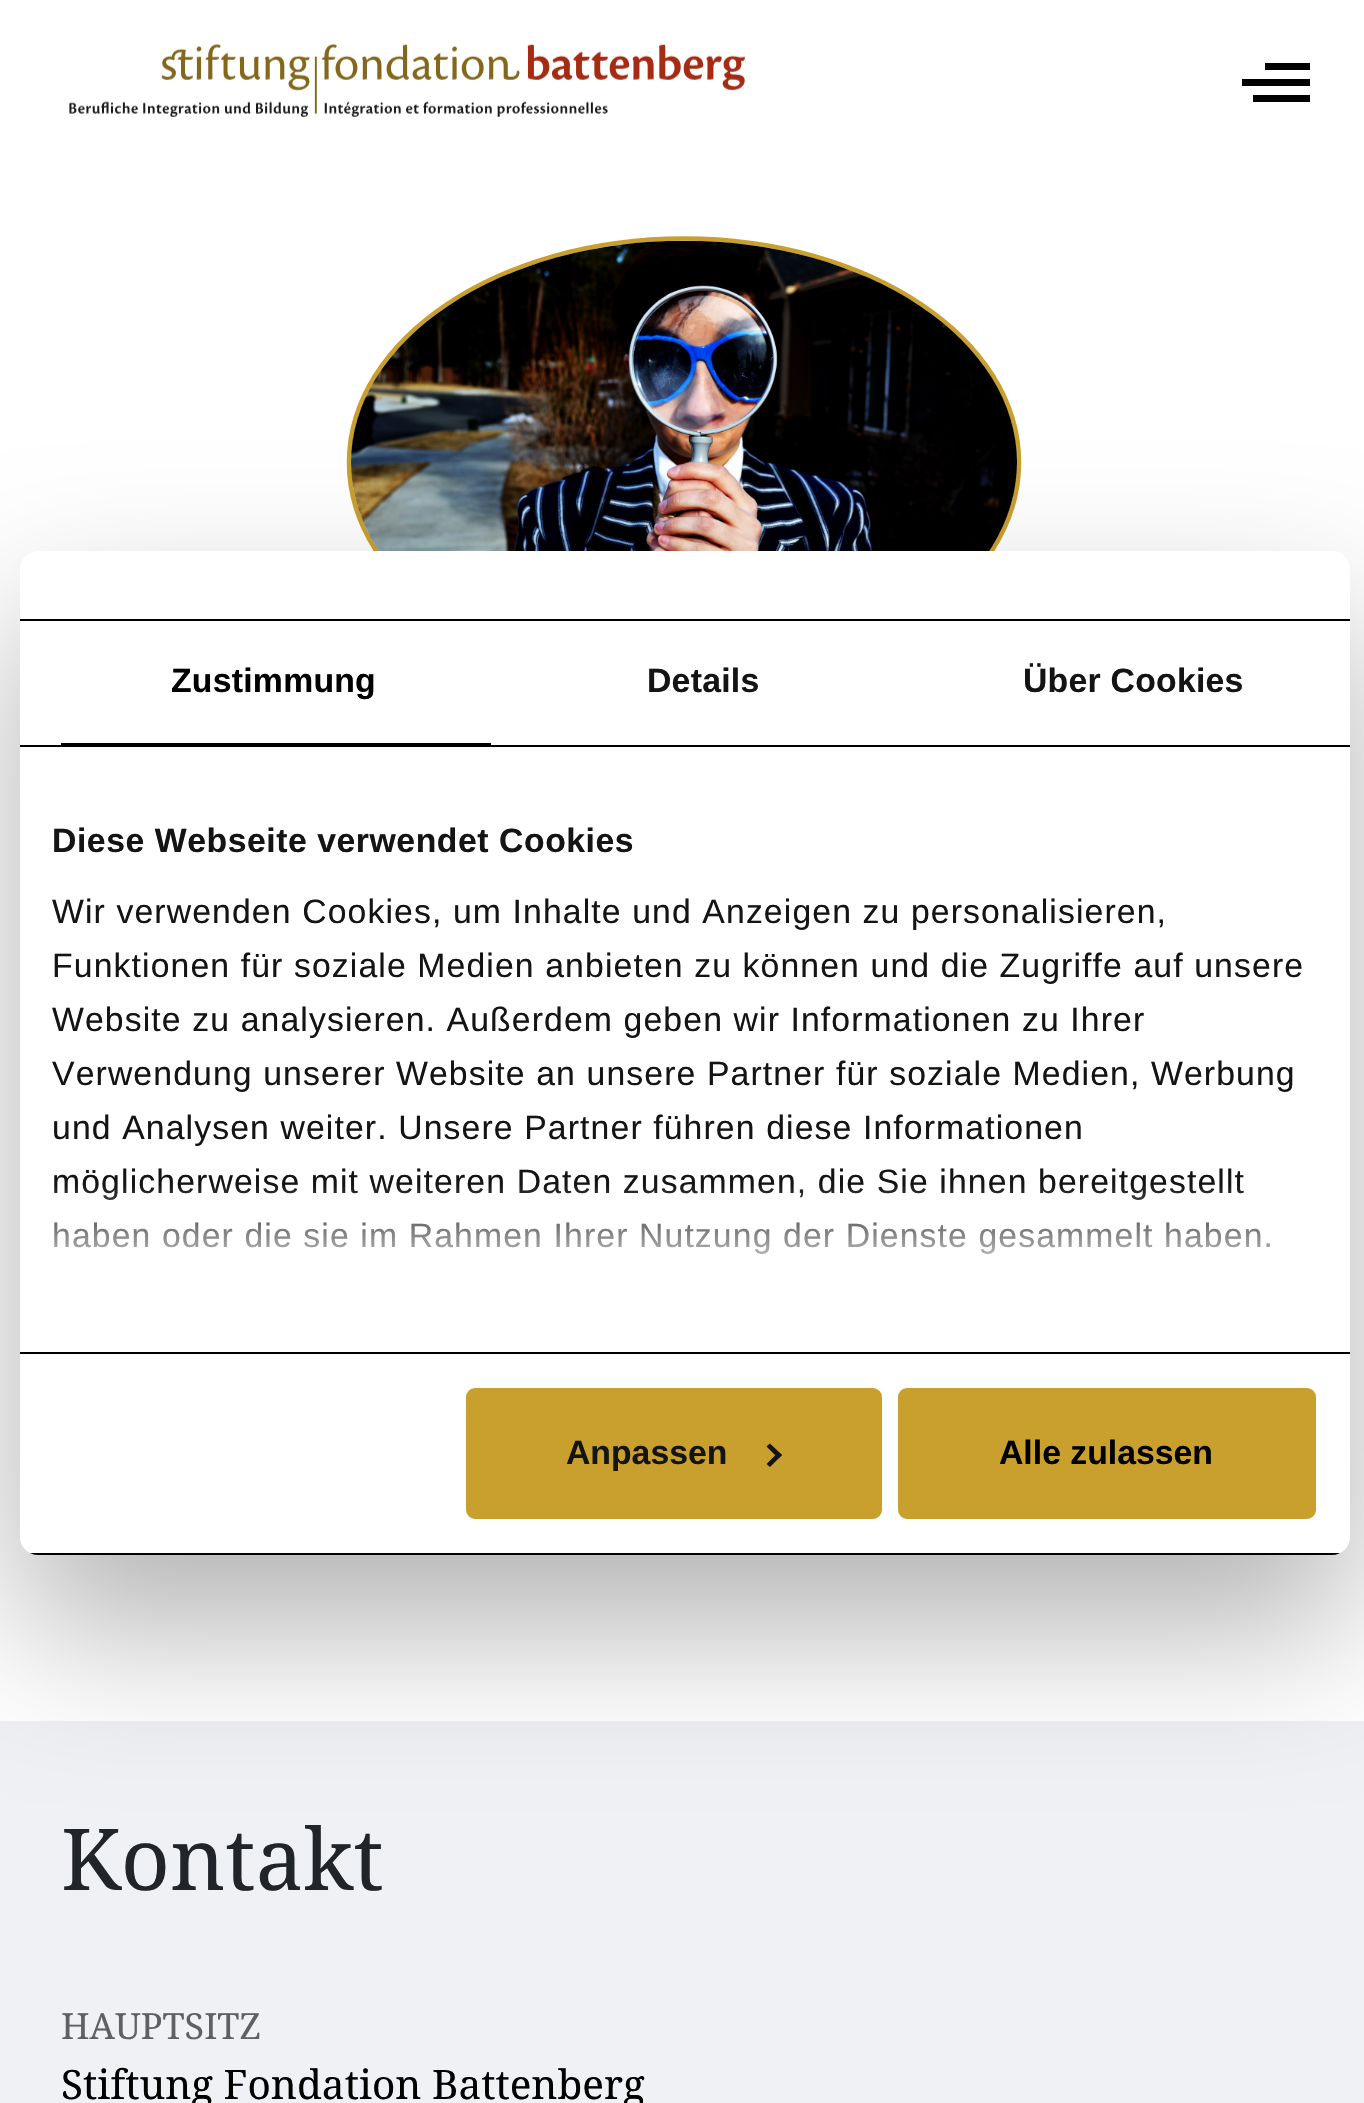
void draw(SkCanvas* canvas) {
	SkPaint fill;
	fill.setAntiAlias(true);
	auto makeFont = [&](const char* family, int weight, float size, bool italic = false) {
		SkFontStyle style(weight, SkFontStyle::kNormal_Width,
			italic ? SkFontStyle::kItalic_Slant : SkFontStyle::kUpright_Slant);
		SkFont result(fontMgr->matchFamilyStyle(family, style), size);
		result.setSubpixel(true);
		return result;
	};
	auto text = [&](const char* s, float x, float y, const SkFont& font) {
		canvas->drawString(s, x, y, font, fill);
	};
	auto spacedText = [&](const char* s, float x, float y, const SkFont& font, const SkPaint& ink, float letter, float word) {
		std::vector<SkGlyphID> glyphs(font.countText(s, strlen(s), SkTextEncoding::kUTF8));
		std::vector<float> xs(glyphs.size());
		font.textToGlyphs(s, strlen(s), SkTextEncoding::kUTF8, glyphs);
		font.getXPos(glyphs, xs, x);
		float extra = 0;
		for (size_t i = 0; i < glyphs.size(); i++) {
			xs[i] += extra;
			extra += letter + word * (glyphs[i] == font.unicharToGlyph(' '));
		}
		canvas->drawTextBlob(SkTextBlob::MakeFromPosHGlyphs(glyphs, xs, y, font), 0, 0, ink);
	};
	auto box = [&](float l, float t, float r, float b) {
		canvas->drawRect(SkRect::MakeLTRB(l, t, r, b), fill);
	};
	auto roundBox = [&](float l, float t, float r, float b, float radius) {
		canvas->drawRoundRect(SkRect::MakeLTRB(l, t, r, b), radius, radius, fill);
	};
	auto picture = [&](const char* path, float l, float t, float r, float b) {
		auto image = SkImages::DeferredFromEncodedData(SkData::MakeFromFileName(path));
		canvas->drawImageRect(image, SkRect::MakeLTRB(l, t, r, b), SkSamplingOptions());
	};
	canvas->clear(0xFFFFFFFF);
	fill.setStyle(SkPaint::kStroke_Style);
	fill.setStrokeWidth(4.5f);
	fill.setColor(0xFFC99F2E);
	canvas->drawPath(SkPathBuilder().moveTo(684, 238.5f).cubicTo(869, 238.5f, 1019, 338.5f, 1019, 462.5f).cubicTo(1019, 586, 869, 686, 684, 686).cubicTo(499, 686, 349, 586, 349, 462.5f).cubicTo(349, 338.5f, 499, 238.5f, 684, 238.5f).close().detach(), fill);
	picture("image1.png", 351, 240, 1017, 551);
	fill.setStyle(SkPaint::kFill_Style);
	fill.setColor(0xFFEFF1F4);
	box(0, 1721, 1364, 2103);
	fill.setColor(0x4D000000);
	fill.setMaskFilter(SkMaskFilter::MakeBlur(kNormal_SkBlurStyle, 76.5f));
	canvas->drawRoundRect(SkRect::MakeLTRB(20, 623, 1350, 1627), 18, 18, fill);
	fill.setMaskFilter(nullptr);
	fill.setColor(0xFFFFFFFF);
	roundBox(20, 551, 1350, 1555, 18);
	fill.setColor(0xFF000000);
	box(20, 619, 1350, 621);
	box(20, 745, 1350, 747);
	box(61, 743, 491, 745);
	box(20, 1352, 1350, 1354);
	canvas->save();
	canvas->clipPath(SkPathBuilder().moveTo(38, 551).lineTo(1332, 551).cubicTo(1342, 551, 1350, 559, 1350, 569).lineTo(1350, 1537).cubicTo(1350, 1547, 1342, 1555, 1332, 1555).lineTo(38, 1555).cubicTo(28, 1555, 20, 1547, 20, 1537).lineTo(20, 569).cubicTo(20, 559, 28, 551, 38, 551).close().detach(), true);
	box(30, 1553, 1340, 1555);
	canvas->restore();
	fill.setColor(0xFFC99F2D);
	canvas->drawRoundRect(SkRect::MakeLTRB(468.5f, 1390.5f, 879.5f, 1516.5f), 6.5f, 6.5f, fill);
	fill.setStyle(SkPaint::kStroke_Style);
	fill.setStrokeWidth(5);
	fill.setColor(0xFFC99F2E);
	canvas->drawRoundRect(SkRect::MakeLTRB(468.5f, 1390.5f, 879.5f, 1516.5f), 6.5f, 6.5f, fill);
	fill.setStyle(SkPaint::kFill_Style);
	fill.setColor(0xFF141414);
	canvas->drawPath(SkPathBuilder().moveTo(770, 1443.5f).lineTo(782, 1455).lineTo(778.5f, 1458.5f).lineTo(766.5f, 1446.5f).close().detach(), fill);
	canvas->drawPath(SkPathBuilder().moveTo(778.5f, 1452).lineTo(782, 1455).lineTo(770, 1467).lineTo(766.5f, 1464).close().detach(), fill);
	fill.setColor(0xFFC99F2E);
	canvas->drawRoundRect(SkRect::MakeLTRB(900.5f, 1390.5f, 1313.5f, 1516.5f), 6.5f, 6.5f, fill);
	fill.setStyle(SkPaint::kStroke_Style);
	canvas->drawRoundRect(SkRect::MakeLTRB(900.5f, 1390.5f, 1313.5f, 1516.5f), 6.5f, 6.5f, fill);
	picture("image0.png", 69, 43, 745, 117);
	fill.setStyle(SkPaint::kFill_Style);
	fill.setColor(0xFF000000);
	box(1265, 63, 1310, 70);
	box(1242, 79, 1310, 86);
	box(1253, 95, 1310, 102);
	auto font1 = makeFont("Liberation Sans", 700, 33.75f);
	spacedText("Zustimmung", 171, 692, font1, fill, 0.25f, 0);
	fill.setColor(0xFF141414);
	spacedText("Details", 647, 692, font1, fill, 0.25f, 0);
	spacedText("Über Cookies", 1023, 692, font1, fill, 0.25f, 0);
	spacedText("Diese Webseite verwendet Cookies", 52, 852, font1, fill, 0.55f, 0);
	auto font2 = makeFont("Liberation Sans", 400, 33.75f);
	spacedText("Wir verwenden Cookies, um Inhalte und Anzeigen zu personalisieren,", 52, 923, font2, fill, 1.12f, 0);
	spacedText("Funktionen für soziale Medien anbieten zu können und die Zugriffe auf unsere", 52, 977, font2, fill, 1.12f, 0);
	spacedText("Website zu analysieren. Außerdem geben wir Informationen zu Ihrer", 52, 1031, font2, fill, 1.12f, 0);
	spacedText("Verwendung unserer Website an unsere Partner für soziale Medien, Werbung", 52, 1085, font2, fill, 1.12f, 0);
	spacedText("und Analysen weiter. Unsere Partner führen diese Informationen", 52, 1139, font2, fill, 1.12f, 0);
	spacedText("möglicherweise mit weiteren Daten zusammen, die Sie ihnen bereitgestellt", 52, 1193, font2, fill, 1.12f, 0);
	spacedText("haben oder die sie im Rahmen Ihrer Nutzung der Dienste gesammelt haben.", 52, 1247, font2, fill, 1.12f, 0);
	{
		const SkColor colors[] = {0xFFFFFFFF, 0xCCFFFFFF, 0x00FFFFFF};
		const float stops[] = {0, 0.5f, 1};
		const SkPoint ends[] = {{669, 1352}, {669, 1184}};
		fill.setShader(SkGradientShader::MakeLinear(ends, colors, stops, 3, SkTileMode::kClamp));
		fill.setAlpha(255);
	}
	box(54, 1186, 1270, 1254);
	fill.setShader(nullptr);
	fill.setColor(0xFF141414);
	text("Anpassen", 566, 1464, font1);
	fill.setColor(0xFF000000);
	text("Alle zulassen", 999, 1464, font1);
	auto font3 = makeFont("Noto Serif", 400, 85.5f);
	fill.setColor(0xFF212529);
	text("Kontakt", 61, 1890, font3);
	auto font4 = makeFont("Noto Serif", 400, 36);
	fill.setColor(0xFF606062);
	text("HAUPTSITZ", 61, 2039, font4);
	auto font5 = makeFont("Noto Serif", 400, 40.5f);
	fill.setColor(0xFF000000);
	text("Stiftung Fondation Battenberg", 61, 2099, font5);
}
